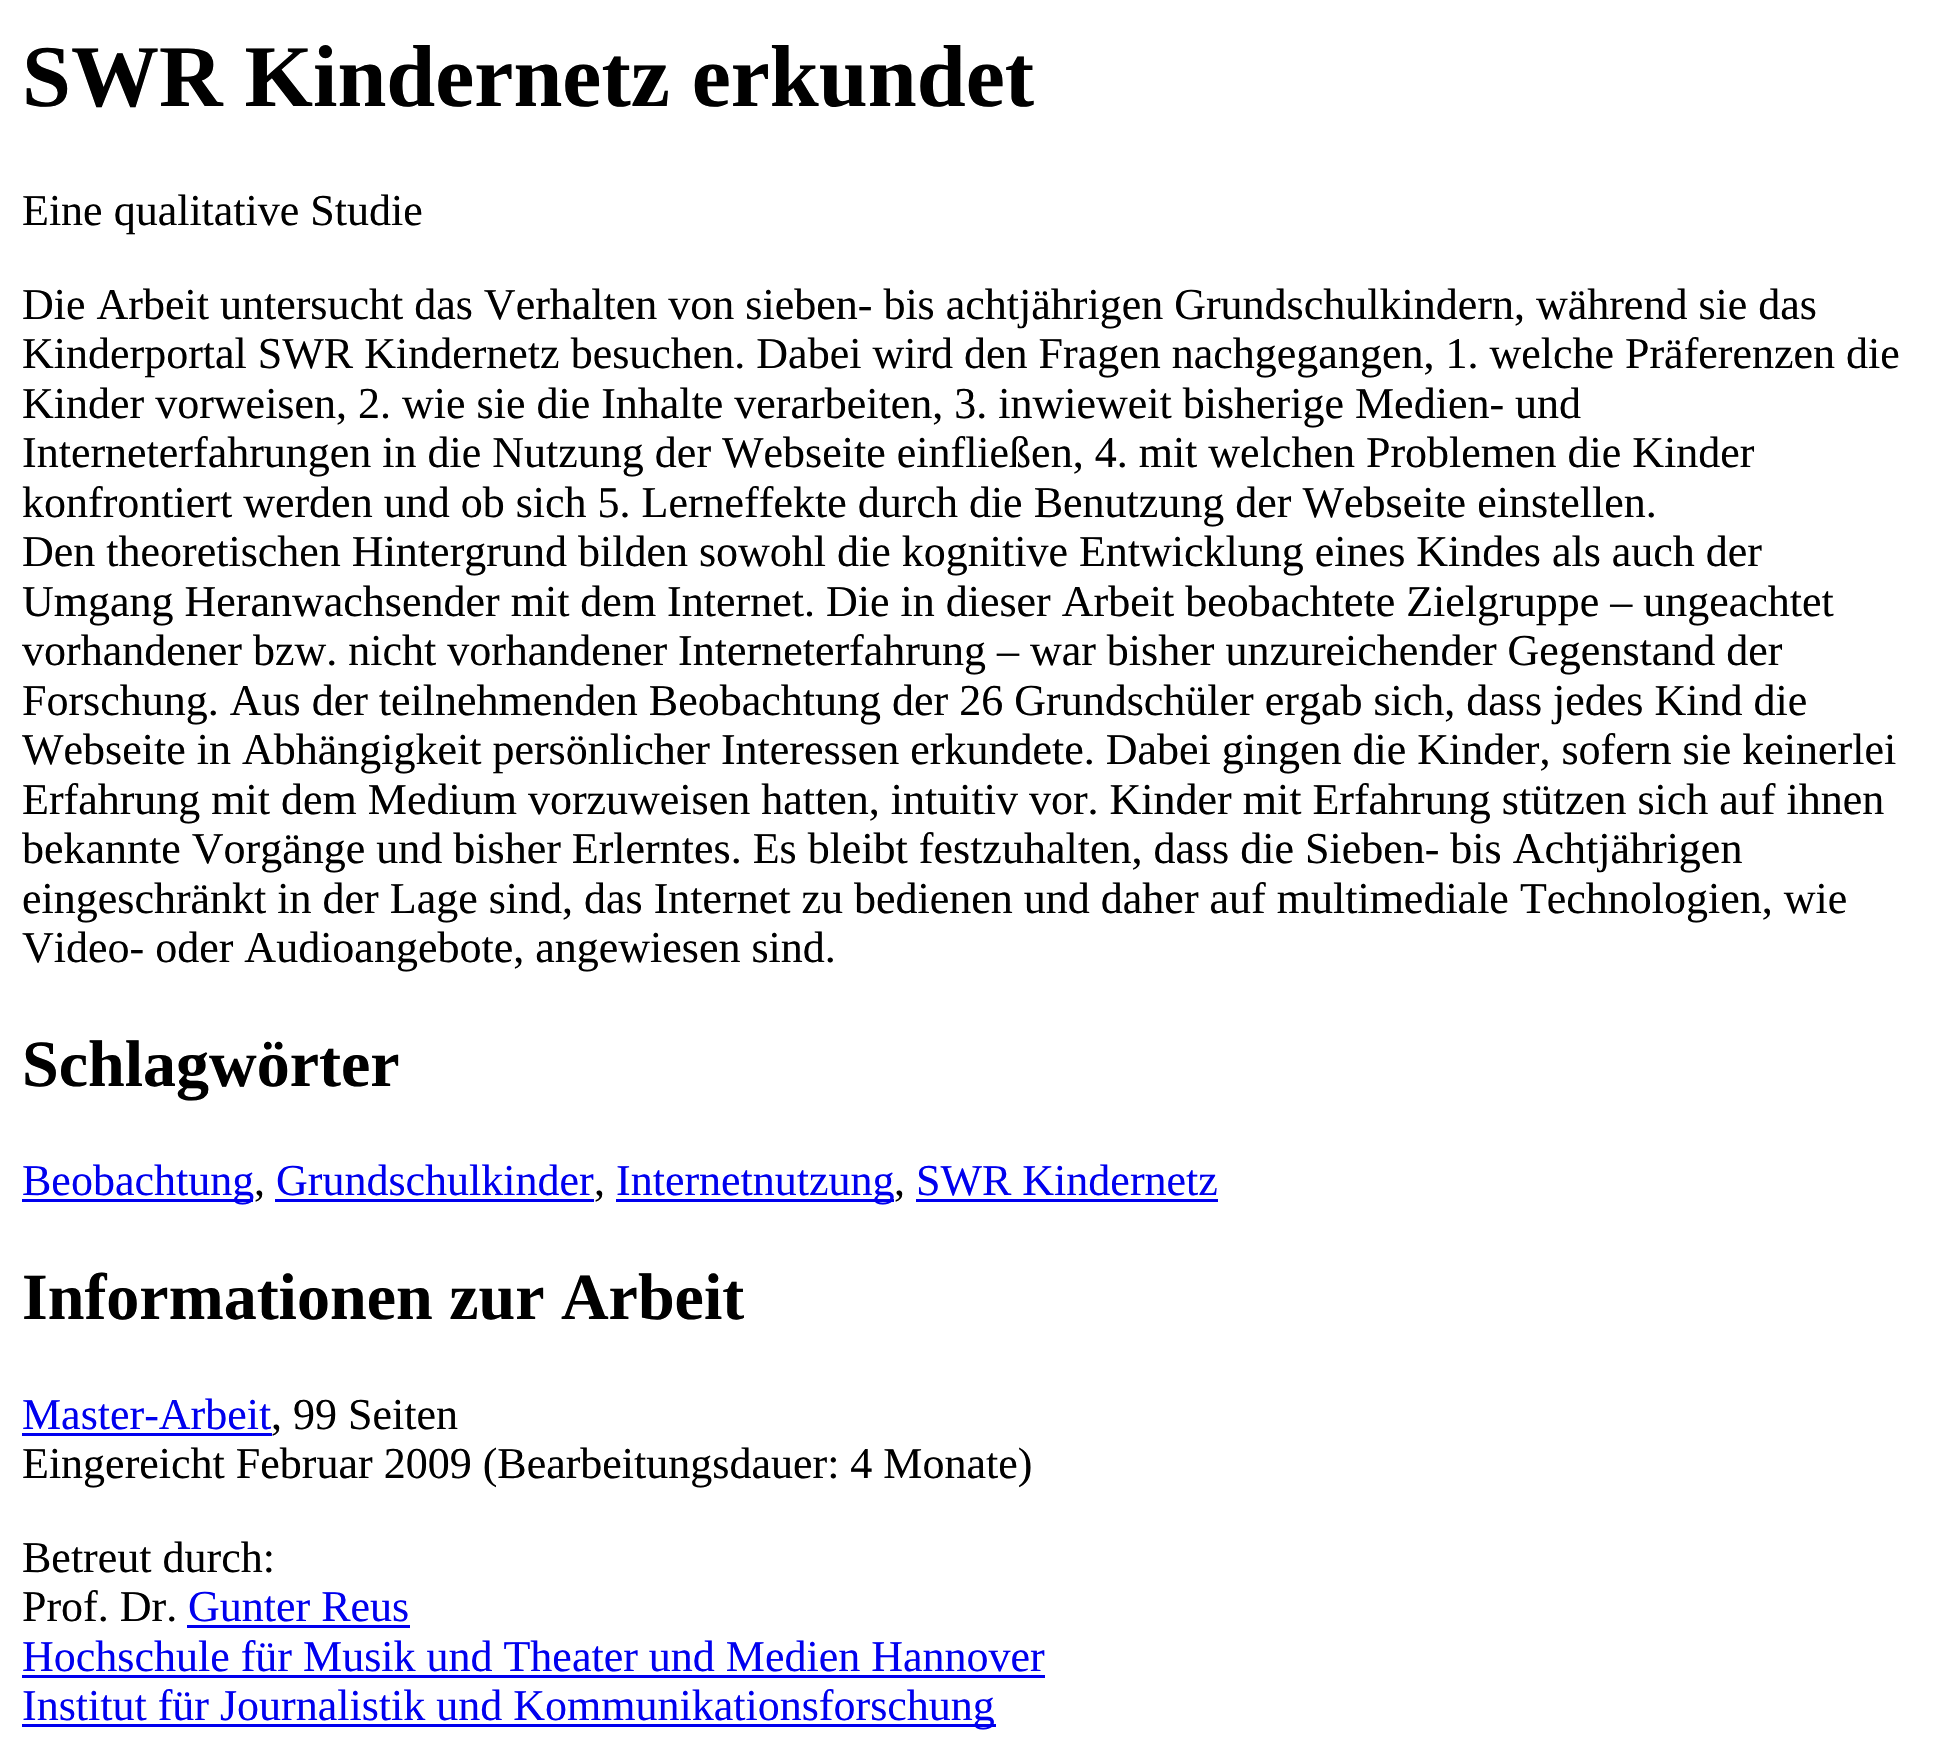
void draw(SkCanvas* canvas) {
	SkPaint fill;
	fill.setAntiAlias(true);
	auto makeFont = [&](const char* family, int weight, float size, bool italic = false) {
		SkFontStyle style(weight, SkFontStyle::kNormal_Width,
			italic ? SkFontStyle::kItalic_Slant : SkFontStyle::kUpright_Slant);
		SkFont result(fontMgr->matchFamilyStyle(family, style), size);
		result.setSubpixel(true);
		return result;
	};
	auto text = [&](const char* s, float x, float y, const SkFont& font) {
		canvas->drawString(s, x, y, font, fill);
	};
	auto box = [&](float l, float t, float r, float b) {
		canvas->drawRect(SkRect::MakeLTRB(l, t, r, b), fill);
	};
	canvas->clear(0xFFFFFFFF);
	fill.setColor(0xFF0000EE);
	box(22, 1199, 253, 1202);
	box(275, 1199, 594, 1202);
	box(616, 1199, 894, 1202);
	box(916, 1199, 1218, 1202);
	box(22, 1433, 272, 1436);
	box(187, 1625, 410, 1628);
	box(22, 1675, 1045, 1678);
	box(22, 1724, 996, 1727);
	auto font1 = makeFont("Liberation Serif", 700, 88);
	fill.setColor(0xFF000000);
	text("SWR Kindernetz erkundet", 22, 106, font1);
	auto font2 = makeFont("Liberation Serif", 400, 44);
	text("Eine qualitative Studie", 22, 225, font2);
	text("Die Arbeit untersucht das Verhalten von sieben- bis achtjährigen Grundschulkindern, während sie das", 22, 319, font2);
	text("Kinderportal SWR Kindernetz besuchen. Dabei wird den Fragen nachgegangen, 1. welche Präferenzen die", 22, 368, font2);
	text("Kinder vorweisen, 2. wie sie die Inhalte verarbeiten, 3. inwieweit bisherige Medien- und", 22, 418, font2);
	text("Interneterfahrungen in die Nutzung der Webseite einfließen, 4. mit welchen Problemen die Kinder", 22, 467, font2);
	text("konfrontiert werden und ob sich 5. Lerneffekte durch die Benutzung der Webseite einstellen.", 22, 517, font2);
	text("Den theoretischen Hintergrund bilden sowohl die kognitive Entwicklung eines Kindes als auch der", 22, 566, font2);
	text("Umgang Heranwachsender mit dem Internet. Die in dieser Arbeit beobachtete Zielgruppe – ungeachtet", 22, 616, font2);
	text("vorhandener bzw. nicht vorhandener Interneterfahrung – war bisher unzureichender Gegenstand der", 22, 665, font2);
	text("Forschung. Aus der teilnehmenden Beobachtung der 26 Grundschüler ergab sich, dass jedes Kind die", 22, 715, font2);
	text("Webseite in Abhängigkeit persönlicher Interessen erkundete. Dabei gingen die Kinder, sofern sie keinerlei", 22, 764, font2);
	text("Erfahrung mit dem Medium vorzuweisen hatten, intuitiv vor. Kinder mit Erfahrung stützen sich auf ihnen", 22, 814, font2);
	text("bekannte Vorgänge und bisher Erlerntes. Es bleibt festzuhalten, dass die Sieben- bis Achtjährigen", 22, 863, font2);
	text("eingeschränkt in der Lage sind, das Internet zu bedienen und daher auf multimediale Technologien, wie", 22, 913, font2);
	text("Video- oder Audioangebote, angewiesen sind.", 22, 962, font2);
	auto font3 = makeFont("Liberation Serif", 700, 66);
	text("Schlagwörter", 22, 1086, font3);
	fill.setColor(0xFF0000EE);
	text("Beobachtung", 22, 1195, font2);
	fill.setColor(0xFF000000);
	text(",", 254, 1195, font2);
	fill.setColor(0xFF0000EE);
	text("Grundschulkinder", 276, 1195, font2);
	fill.setColor(0xFF000000);
	text(",", 594, 1195, font2);
	fill.setColor(0xFF0000EE);
	text("Internetnutzung", 616, 1195, font2);
	fill.setColor(0xFF000000);
	text(",", 894, 1195, font2);
	fill.setColor(0xFF0000EE);
	text("SWR Kindernetz", 916, 1195, font2);
	fill.setColor(0xFF000000);
	text("Informationen zur Arbeit", 22, 1319, font3);
	fill.setColor(0xFF0000EE);
	text("Master-Arbeit", 22, 1429, font2);
	fill.setColor(0xFF000000);
	text(", 99 Seiten", 271, 1429, font2);
	text("Eingereicht Februar 2009 (Bearbeitungsdauer: 4 Monate)", 22, 1478, font2);
	text("Betreut durch:", 22, 1572, font2);
	text("Prof. Dr.", 22, 1621, font2);
	fill.setColor(0xFF0000EE);
	text("Gunter Reus", 188, 1621, font2);
	text("Hochschule für Musik und Theater und Medien Hannover", 22, 1671, font2);
	text("Institut für Journalistik und Kommunikationsforschung", 22, 1720, font2);
}
